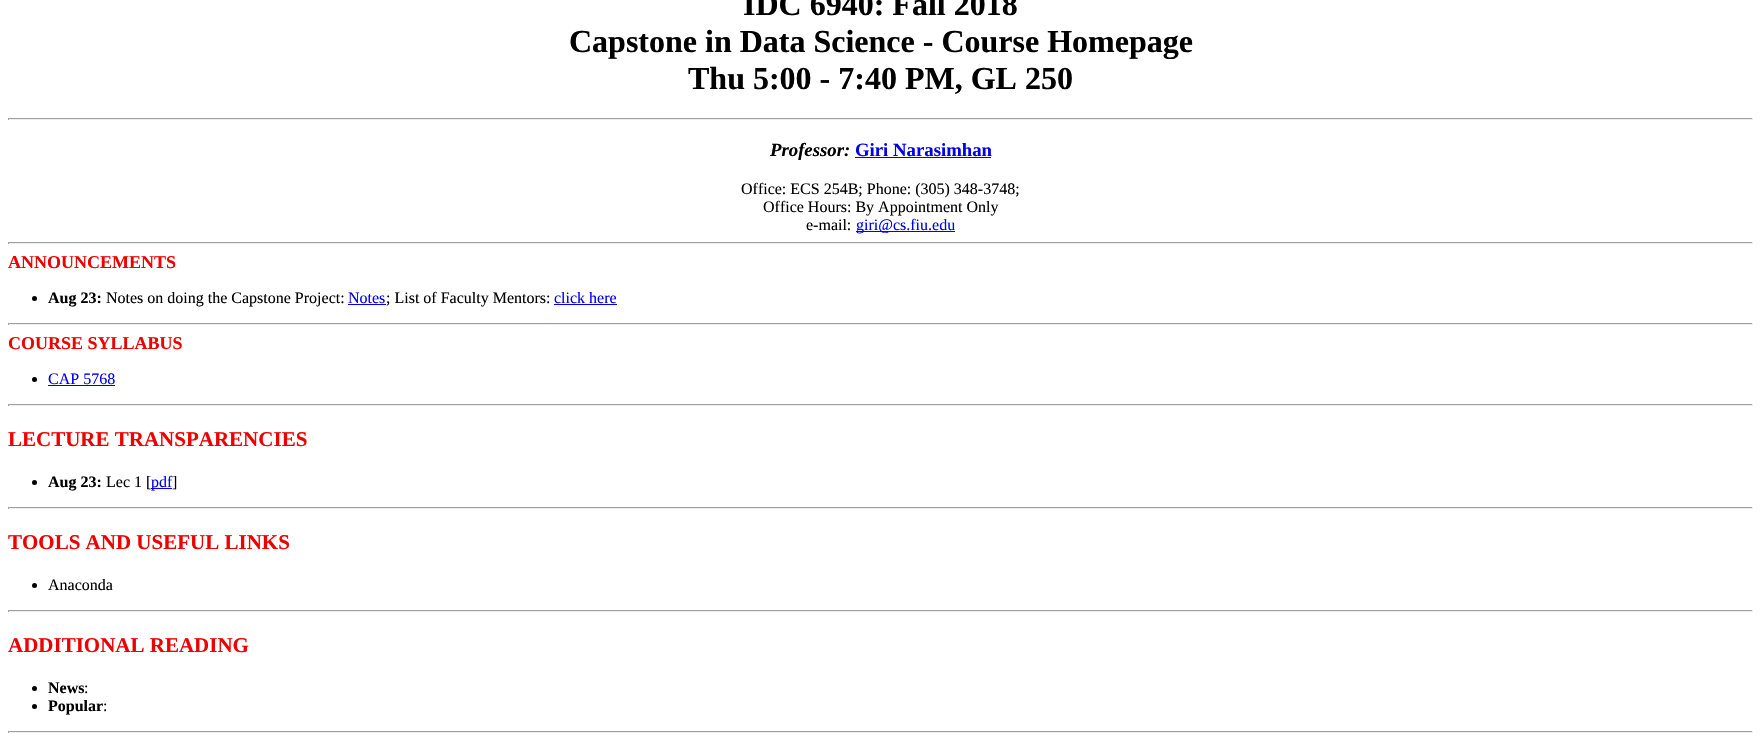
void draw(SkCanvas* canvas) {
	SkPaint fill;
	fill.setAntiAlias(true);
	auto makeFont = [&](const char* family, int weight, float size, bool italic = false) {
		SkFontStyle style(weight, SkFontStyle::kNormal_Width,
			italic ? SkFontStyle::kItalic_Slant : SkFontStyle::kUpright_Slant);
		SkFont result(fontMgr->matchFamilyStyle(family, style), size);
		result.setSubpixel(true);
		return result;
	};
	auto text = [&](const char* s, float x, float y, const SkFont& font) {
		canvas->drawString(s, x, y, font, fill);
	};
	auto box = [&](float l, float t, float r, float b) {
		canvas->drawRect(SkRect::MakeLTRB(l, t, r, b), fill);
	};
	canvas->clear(0xFFFFFFFF);
	fill.setColor(0xFF9F9F9F);
	box(8, 118, 1753, 119);
	fill.setColor(0xFFEEEEEE);
	box(1752, 118, 1753, 120);
	box(8, 119, 1753, 120);
	fill.setColor(0xFF9F9F9F);
	box(8, 118, 9, 120);
	fill.setColor(0xFF0000EE);
	box(855, 157, 991, 158);
	box(856, 231, 955, 232);
	fill.setColor(0xFF9F9F9F);
	box(8, 242, 1753, 243);
	fill.setColor(0xFFEEEEEE);
	box(1752, 242, 1753, 244);
	box(8, 243, 1753, 244);
	fill.setColor(0xFF9F9F9F);
	box(8, 242, 9, 244);
	fill.setColor(0xFF000000);
	canvas->drawCircle(34.5f, 298.5f, 2.5f, fill);
	fill.setColor(0xFF0000EE);
	box(348, 304, 386, 305);
	box(554, 304, 617, 305);
	fill.setColor(0xFF9F9F9F);
	box(8, 323, 1753, 324);
	fill.setColor(0xFFEEEEEE);
	box(1752, 323, 1753, 325);
	box(8, 324, 1753, 325);
	fill.setColor(0xFF9F9F9F);
	box(8, 323, 9, 325);
	fill.setColor(0xFF000000);
	canvas->drawCircle(34.5f, 379.5f, 2.5f, fill);
	fill.setColor(0xFF0000EE);
	box(48, 385, 115, 386);
	fill.setColor(0xFF9F9F9F);
	box(8, 404, 1753, 405);
	fill.setColor(0xFFEEEEEE);
	box(1752, 404, 1753, 406);
	box(8, 405, 1753, 406);
	fill.setColor(0xFF9F9F9F);
	box(8, 404, 9, 406);
	fill.setColor(0xFF000000);
	canvas->drawCircle(34.5f, 482.5f, 2.5f, fill);
	fill.setColor(0xFF0000EE);
	box(151, 488, 172, 489);
	fill.setColor(0xFF9F9F9F);
	box(8, 507, 1753, 508);
	fill.setColor(0xFFEEEEEE);
	box(1752, 507, 1753, 509);
	box(8, 508, 1753, 509);
	fill.setColor(0xFF9F9F9F);
	box(8, 507, 9, 509);
	fill.setColor(0xFF000000);
	canvas->drawCircle(34.5f, 585.5f, 2.5f, fill);
	fill.setColor(0xFF9F9F9F);
	box(8, 610, 1753, 611);
	fill.setColor(0xFFEEEEEE);
	box(1752, 610, 1753, 612);
	box(8, 611, 1753, 612);
	fill.setColor(0xFF9F9F9F);
	box(8, 610, 9, 612);
	fill.setColor(0xFF000000);
	canvas->drawCircle(34.5f, 688.5f, 2.5f, fill);
	canvas->drawCircle(34.5f, 706.5f, 2.5f, fill);
	fill.setColor(0xFF9F9F9F);
	box(8, 731, 1753, 732);
	fill.setColor(0xFFEEEEEE);
	box(1752, 731, 1753, 733);
	box(8, 732, 1753, 733);
	fill.setColor(0xFF9F9F9F);
	box(8, 731, 9, 733);
	auto font1 = makeFont("Liberation Serif", 700, 32);
	fill.setColor(0xFF000000);
	text("IDC 6940: Fall 2018", 743, 15, font1);
	text("Capstone in Data Science - Course Homepage", 569, 52, font1);
	text("Thu 5:00 - 7:40 PM, GL 250", 688, 89, font1);
	auto font2 = makeFont("Liberation Serif", 700, 18.75f, true);
	text("Professor:", 770, 156, font2);
	auto font3 = makeFont("Liberation Serif", 700, 18.75f);
	fill.setColor(0xFF0000EE);
	text("Giri Narasimhan", 855, 156, font3);
	auto font4 = makeFont("Liberation Serif", 400, 16);
	fill.setColor(0xFF000000);
	text("Office: ECS 254B; Phone: (305) 348-3748;", 741, 194, font4);
	text("Office Hours: By Appointment Only", 763, 212, font4);
	text("e-mail:", 806, 230, font4);
	fill.setColor(0xFF0000EE);
	text("giri@cs.fiu.edu", 856, 230, font4);
	auto font5 = makeFont("Liberation Serif", 700, 18);
	fill.setColor(0xFFEE0000);
	text("ANNOUNCEMENTS", 8, 268, font5);
	auto font6 = makeFont("Liberation Serif", 700, 16);
	fill.setColor(0xFF000000);
	text("Aug 23:", 48, 303, font6);
	text("Notes on doing the Capstone Project:", 106, 303, font4);
	fill.setColor(0xFF0000EE);
	text("Notes", 348, 303, font4);
	fill.setColor(0xFF000000);
	text("; List of Faculty Mentors:", 386, 303, font4);
	fill.setColor(0xFF0000EE);
	text("click here", 554, 303, font4);
	fill.setColor(0xFFEE0000);
	text("COURSE SYLLABUS", 8, 349, font5);
	fill.setColor(0xFF0000EE);
	text("CAP 5768", 48, 384, font4);
	auto font7 = makeFont("Liberation Serif", 700, 21);
	fill.setColor(0xFFEE0000);
	text("LECTURE TRANSPARENCIES", 8, 446, font7);
	fill.setColor(0xFF000000);
	text("Aug 23:", 48, 487, font6);
	text("Lec 1 [", 106, 487, font4);
	fill.setColor(0xFF0000EE);
	text("pdf", 151, 487, font4);
	fill.setColor(0xFF000000);
	text("]", 172, 487, font4);
	fill.setColor(0xFFEE0000);
	text("TOOLS AND USEFUL LINKS", 8, 549, font7);
	fill.setColor(0xFF000000);
	text("Anaconda", 48, 590, font4);
	fill.setColor(0xFFEE0000);
	text("ADDITIONAL READING", 8, 652, font7);
	fill.setColor(0xFF000000);
	text("News", 48, 693, font6);
	text(":", 84, 693, font4);
	text("Popular", 48, 711, font6);
	text(":", 103, 711, font4);
}
